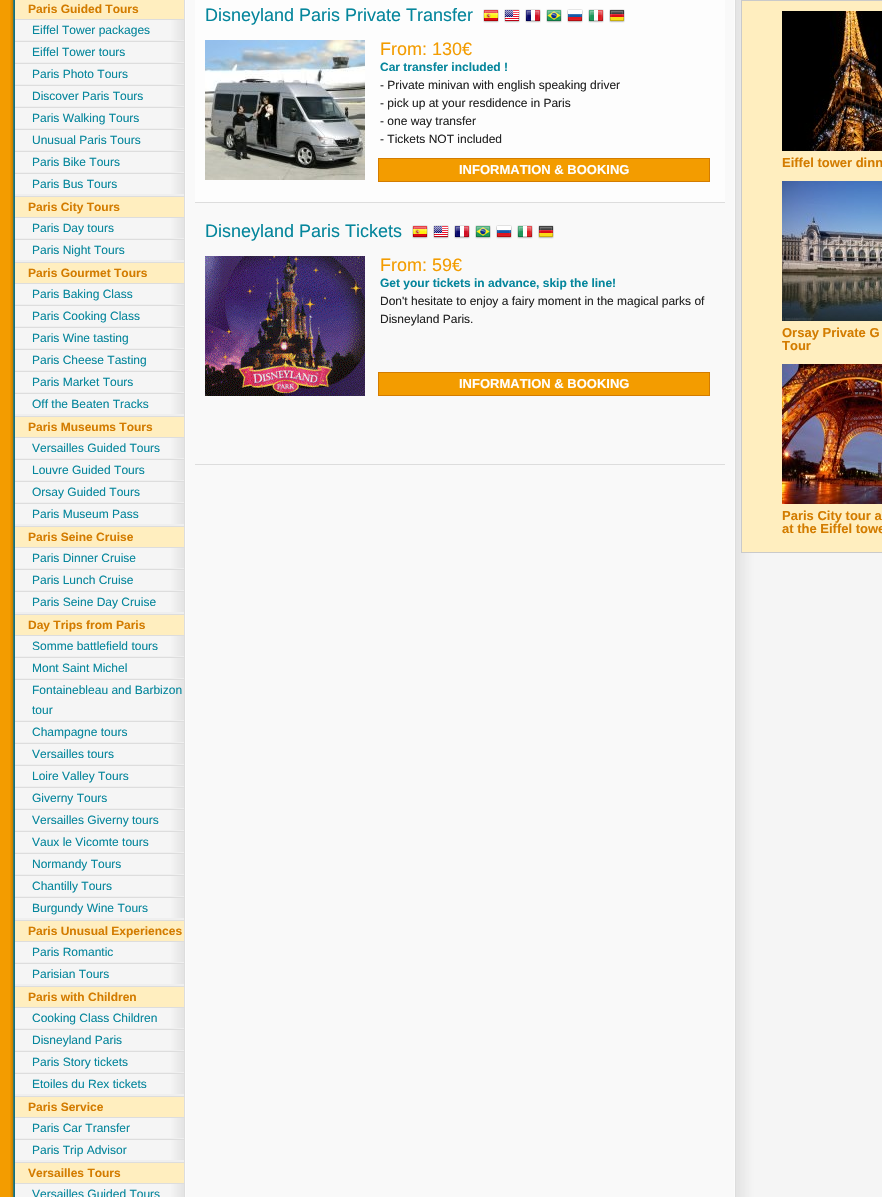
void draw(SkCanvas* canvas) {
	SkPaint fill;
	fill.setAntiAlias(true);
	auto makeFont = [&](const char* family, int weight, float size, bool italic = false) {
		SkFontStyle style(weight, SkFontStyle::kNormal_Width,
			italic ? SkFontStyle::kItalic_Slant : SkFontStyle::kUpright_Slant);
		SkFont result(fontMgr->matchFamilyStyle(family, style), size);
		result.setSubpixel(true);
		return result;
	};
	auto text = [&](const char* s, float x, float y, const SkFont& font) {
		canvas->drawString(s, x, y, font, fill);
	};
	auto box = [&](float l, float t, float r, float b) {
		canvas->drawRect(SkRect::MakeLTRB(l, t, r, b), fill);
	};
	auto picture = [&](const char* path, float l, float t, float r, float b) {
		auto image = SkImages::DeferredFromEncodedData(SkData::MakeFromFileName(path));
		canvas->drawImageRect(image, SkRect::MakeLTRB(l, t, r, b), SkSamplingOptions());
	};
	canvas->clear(0xFFF39C00);
	picture("image0.png", 10, 0, 15, 1197);
	picture("image1.png", 15, 0, 882, 1197);
	fill.setColor(0xFFEFEFEF);
	box(15, 194, 184, 196);
	fill.setColor(0xFFFFEEBF);
	box(15, 0, 184, 19);
	fill.setColor(0xFFDDDDDD);
	box(15, 19, 184, 20);
	fill.setColor(0xFFEFEFEF);
	box(15, 40, 184, 41);
	fill.setColor(0xFFDDDDDD);
	box(15, 41, 184, 42);
	fill.setColor(0xFFEFEFEF);
	box(15, 62, 184, 63);
	fill.setColor(0xFFDDDDDD);
	box(15, 63, 184, 64);
	fill.setColor(0xFFEFEFEF);
	box(15, 84, 184, 85);
	fill.setColor(0xFFDDDDDD);
	box(15, 85, 184, 86);
	fill.setColor(0xFFEFEFEF);
	box(15, 106, 184, 107);
	fill.setColor(0xFFDDDDDD);
	box(15, 107, 184, 108);
	fill.setColor(0xFFEFEFEF);
	box(15, 128, 184, 129);
	fill.setColor(0xFFDDDDDD);
	box(15, 129, 184, 130);
	fill.setColor(0xFFEFEFEF);
	box(15, 150, 184, 151);
	fill.setColor(0xFFDDDDDD);
	box(15, 151, 184, 152);
	fill.setColor(0xFFEFEFEF);
	box(15, 172, 184, 173);
	fill.setColor(0xFFDDDDDD);
	box(15, 173, 184, 174);
	box(15, 196, 184, 197);
	fill.setColor(0xFFEFEFEF);
	box(15, 260, 184, 262);
	fill.setColor(0xFFFFEEBF);
	box(15, 197, 184, 217);
	fill.setColor(0xFFDDDDDD);
	box(15, 217, 184, 218);
	fill.setColor(0xFFEFEFEF);
	box(15, 238, 184, 239);
	fill.setColor(0xFFDDDDDD);
	box(15, 239, 184, 240);
	box(15, 262, 184, 263);
	fill.setColor(0xFFEFEFEF);
	box(15, 414, 184, 416);
	fill.setColor(0xFFFFEEBF);
	box(15, 263, 184, 283);
	fill.setColor(0xFFDDDDDD);
	box(15, 283, 184, 284);
	fill.setColor(0xFFEFEFEF);
	box(15, 304, 184, 305);
	fill.setColor(0xFFDDDDDD);
	box(15, 305, 184, 306);
	fill.setColor(0xFFEFEFEF);
	box(15, 326, 184, 327);
	fill.setColor(0xFFDDDDDD);
	box(15, 327, 184, 328);
	fill.setColor(0xFFEFEFEF);
	box(15, 348, 184, 349);
	fill.setColor(0xFFDDDDDD);
	box(15, 349, 184, 350);
	fill.setColor(0xFFEFEFEF);
	box(15, 370, 184, 371);
	fill.setColor(0xFFDDDDDD);
	box(15, 371, 184, 372);
	fill.setColor(0xFFEFEFEF);
	box(15, 392, 184, 393);
	fill.setColor(0xFFDDDDDD);
	box(15, 393, 184, 394);
	box(15, 416, 184, 417);
	fill.setColor(0xFFEFEFEF);
	box(15, 524, 184, 526);
	fill.setColor(0xFFFFEEBF);
	box(15, 417, 184, 437);
	fill.setColor(0xFFDDDDDD);
	box(15, 437, 184, 438);
	fill.setColor(0xFFEFEFEF);
	box(15, 458, 184, 459);
	fill.setColor(0xFFDDDDDD);
	box(15, 459, 184, 460);
	fill.setColor(0xFFEFEFEF);
	box(15, 480, 184, 481);
	fill.setColor(0xFFDDDDDD);
	box(15, 481, 184, 482);
	fill.setColor(0xFFEFEFEF);
	box(15, 502, 184, 503);
	fill.setColor(0xFFDDDDDD);
	box(15, 503, 184, 504);
	box(15, 526, 184, 527);
	fill.setColor(0xFFEFEFEF);
	box(15, 612, 184, 614);
	fill.setColor(0xFFFFEEBF);
	box(15, 527, 184, 547);
	fill.setColor(0xFFDDDDDD);
	box(15, 547, 184, 548);
	fill.setColor(0xFFEFEFEF);
	box(15, 568, 184, 569);
	fill.setColor(0xFFDDDDDD);
	box(15, 569, 184, 570);
	fill.setColor(0xFFEFEFEF);
	box(15, 590, 184, 591);
	fill.setColor(0xFFDDDDDD);
	box(15, 591, 184, 592);
	box(15, 614, 184, 615);
	fill.setColor(0xFFEFEFEF);
	box(15, 918, 184, 920);
	fill.setColor(0xFFFFEEBF);
	box(15, 615, 184, 635);
	fill.setColor(0xFFDDDDDD);
	box(15, 635, 184, 636);
	fill.setColor(0xFFEFEFEF);
	box(15, 656, 184, 657);
	fill.setColor(0xFFDDDDDD);
	box(15, 657, 184, 658);
	fill.setColor(0xFFEFEFEF);
	box(15, 678, 184, 679);
	fill.setColor(0xFFDDDDDD);
	box(15, 679, 184, 680);
	fill.setColor(0xFFEFEFEF);
	box(15, 720, 184, 721);
	fill.setColor(0xFFDDDDDD);
	box(15, 721, 184, 722);
	fill.setColor(0xFFEFEFEF);
	box(15, 742, 184, 743);
	fill.setColor(0xFFDDDDDD);
	box(15, 743, 184, 744);
	fill.setColor(0xFFEFEFEF);
	box(15, 764, 184, 765);
	fill.setColor(0xFFDDDDDD);
	box(15, 765, 184, 766);
	fill.setColor(0xFFEFEFEF);
	box(15, 786, 184, 787);
	fill.setColor(0xFFDDDDDD);
	box(15, 787, 184, 788);
	fill.setColor(0xFFEFEFEF);
	box(15, 808, 184, 809);
	fill.setColor(0xFFDDDDDD);
	box(15, 809, 184, 810);
	fill.setColor(0xFFEFEFEF);
	box(15, 830, 184, 831);
	fill.setColor(0xFFDDDDDD);
	box(15, 831, 184, 832);
	fill.setColor(0xFFEFEFEF);
	box(15, 852, 184, 853);
	fill.setColor(0xFFDDDDDD);
	box(15, 853, 184, 854);
	fill.setColor(0xFFEFEFEF);
	box(15, 874, 184, 875);
	fill.setColor(0xFFDDDDDD);
	box(15, 875, 184, 876);
	fill.setColor(0xFFEFEFEF);
	box(15, 896, 184, 897);
	fill.setColor(0xFFDDDDDD);
	box(15, 897, 184, 898);
	box(15, 920, 184, 921);
	fill.setColor(0xFFEFEFEF);
	box(15, 984, 184, 986);
	fill.setColor(0xFFFFEEBF);
	box(15, 921, 184, 941);
	fill.setColor(0xFFDDDDDD);
	box(15, 941, 184, 942);
	fill.setColor(0xFFEFEFEF);
	box(15, 962, 184, 963);
	fill.setColor(0xFFDDDDDD);
	box(15, 963, 184, 964);
	box(15, 986, 184, 987);
	fill.setColor(0xFFEFEFEF);
	box(15, 1094, 184, 1096);
	fill.setColor(0xFFFFEEBF);
	box(15, 987, 184, 1007);
	fill.setColor(0xFFDDDDDD);
	box(15, 1007, 184, 1008);
	fill.setColor(0xFFEFEFEF);
	box(15, 1028, 184, 1029);
	fill.setColor(0xFFDDDDDD);
	box(15, 1029, 184, 1030);
	fill.setColor(0xFFEFEFEF);
	box(15, 1050, 184, 1051);
	fill.setColor(0xFFDDDDDD);
	box(15, 1051, 184, 1052);
	fill.setColor(0xFFEFEFEF);
	box(15, 1072, 184, 1073);
	fill.setColor(0xFFDDDDDD);
	box(15, 1073, 184, 1074);
	box(15, 1096, 184, 1097);
	fill.setColor(0xFFEFEFEF);
	box(15, 1160, 184, 1162);
	fill.setColor(0xFFFFEEBF);
	box(15, 1097, 184, 1117);
	fill.setColor(0xFFDDDDDD);
	box(15, 1117, 184, 1118);
	fill.setColor(0xFFEFEFEF);
	box(15, 1138, 184, 1139);
	fill.setColor(0xFFDDDDDD);
	box(15, 1139, 184, 1140);
	box(15, 1162, 184, 1163);
	fill.setColor(0xFFFFEEBF);
	box(15, 1163, 184, 1183);
	fill.setColor(0xFFDDDDDD);
	box(15, 1183, 184, 1184);
	fill.setColor(0xFFFDFDFD);
	box(195, 0, 725, 202);
	picture("image2.png", 483, 9, 499, 23);
	picture("image3.png", 504, 9, 520, 23);
	picture("image4.png", 525, 9, 541, 23);
	picture("image5.png", 546, 9, 562, 23);
	picture("image6.png", 567, 9, 583, 23);
	picture("image7.png", 588, 9, 604, 23);
	picture("image8.png", 609, 9, 625, 23);
	picture("image9.png", 205, 40, 365, 180);
	fill.setColor(0xFFF39C00);
	canvas->drawRect(SkRect::MakeLTRB(378.5f, 158.5f, 709.5f, 181.5f), fill);
	fill.setStyle(SkPaint::kStroke_Style);
	fill.setStrokeWidth(1);
	fill.setColor(0xFFD37C00);
	canvas->drawRect(SkRect::MakeLTRB(378.5f, 158.5f, 709.5f, 181.5f), fill);
	fill.setStyle(SkPaint::kFill_Style);
	fill.setColor(0xFFDDDDDD);
	box(195, 202, 725, 203);
	picture("image10.png", 412, 225, 428, 239);
	picture("image11.png", 433, 225, 449, 239);
	picture("image12.png", 454, 225, 470, 239);
	picture("image13.png", 475, 225, 491, 239);
	picture("image14.png", 496, 225, 512, 239);
	picture("image15.png", 517, 225, 533, 239);
	picture("image16.png", 538, 225, 554, 239);
	picture("image17.png", 205, 256, 365, 396);
	fill.setColor(0xFFF39C00);
	canvas->drawRect(SkRect::MakeLTRB(378.5f, 372.5f, 709.5f, 395.5f), fill);
	fill.setStyle(SkPaint::kStroke_Style);
	fill.setColor(0xFFD37C00);
	canvas->drawRect(SkRect::MakeLTRB(378.5f, 372.5f, 709.5f, 395.5f), fill);
	fill.setStyle(SkPaint::kFill_Style);
	fill.setColor(0xFFDDDDDD);
	box(195, 464, 725, 465);
	fill.setColor(0xFFFFEEBF);
	canvas->drawRect(SkRect::MakeLTRB(741.5f, 0.5f, 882.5f, 552.5f), fill);
	fill.setStyle(SkPaint::kStroke_Style);
	fill.setColor(0xFFCACACA);
	canvas->drawRect(SkRect::MakeLTRB(741.5f, 0.5f, 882.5f, 552.5f), fill);
	picture("image18.png", 782, 11, 882, 151);
	picture("image19.png", 782, 181, 882, 321);
	picture("image20.png", 782, 364, 882, 504);
	auto font1 = makeFont("Liberation Sans", 700, 12);
	fill.setStyle(SkPaint::kFill_Style);
	fill.setColor(0xFFD37C00);
	text("Paris Guided Tours", 28, 13, font1);
	auto font2 = makeFont("Liberation Sans", 400, 12);
	fill.setColor(0xFF05869C);
	text("Eiffel Tower packages", 32, 34, font2);
	text("Eiffel Tower tours", 32, 56, font2);
	text("Paris Photo Tours", 32, 78, font2);
	text("Discover Paris Tours", 32, 100, font2);
	text("Paris Walking Tours", 32, 122, font2);
	text("Unusual Paris Tours", 32, 144, font2);
	text("Paris Bike Tours", 32, 166, font2);
	text("Paris Bus Tours", 32, 188, font2);
	fill.setColor(0xFFD37C00);
	text("Paris City Tours", 28, 211, font1);
	fill.setColor(0xFF05869C);
	text("Paris Day tours", 32, 232, font2);
	text("Paris Night Tours", 32, 254, font2);
	fill.setColor(0xFFD37C00);
	text("Paris Gourmet Tours", 28, 277, font1);
	fill.setColor(0xFF05869C);
	text("Paris Baking Class", 32, 298, font2);
	text("Paris Cooking Class", 32, 320, font2);
	text("Paris Wine tasting", 32, 342, font2);
	text("Paris Cheese Tasting", 32, 364, font2);
	text("Paris Market Tours", 32, 386, font2);
	text("Off the Beaten Tracks", 32, 408, font2);
	fill.setColor(0xFFD37C00);
	text("Paris Museums Tours", 28, 431, font1);
	fill.setColor(0xFF05869C);
	text("Versailles Guided Tours", 32, 452, font2);
	text("Louvre Guided Tours", 32, 474, font2);
	text("Orsay Guided Tours", 32, 496, font2);
	text("Paris Museum Pass", 32, 518, font2);
	fill.setColor(0xFFD37C00);
	text("Paris Seine Cruise", 28, 541, font1);
	fill.setColor(0xFF05869C);
	text("Paris Dinner Cruise", 32, 562, font2);
	text("Paris Lunch Cruise", 32, 584, font2);
	text("Paris Seine Day Cruise", 32, 606, font2);
	fill.setColor(0xFFD37C00);
	text("Day Trips from Paris", 28, 629, font1);
	fill.setColor(0xFF05869C);
	text("Somme battlefield tours", 32, 650, font2);
	text("Mont Saint Michel", 32, 672, font2);
	text("Fontainebleau and Barbizon", 32, 694, font2);
	text("tour", 32, 714, font2);
	text("Champagne tours", 32, 736, font2);
	text("Versailles tours", 32, 758, font2);
	text("Loire Valley Tours", 32, 780, font2);
	text("Giverny Tours", 32, 802, font2);
	text("Versailles Giverny tours", 32, 824, font2);
	text("Vaux le Vicomte tours", 32, 846, font2);
	text("Normandy Tours", 32, 868, font2);
	text("Chantilly Tours", 32, 890, font2);
	text("Burgundy Wine Tours", 32, 912, font2);
	fill.setColor(0xFFD37C00);
	text("Paris Unusual Experiences", 28, 935, font1);
	fill.setColor(0xFF05869C);
	text("Paris Romantic", 32, 956, font2);
	text("Parisian Tours", 32, 978, font2);
	fill.setColor(0xFFD37C00);
	text("Paris with Children", 28, 1001, font1);
	fill.setColor(0xFF05869C);
	text("Cooking Class Children", 32, 1022, font2);
	text("Disneyland Paris", 32, 1044, font2);
	text("Paris Story tickets", 32, 1066, font2);
	text("Etoiles du Rex tickets", 32, 1088, font2);
	fill.setColor(0xFFD37C00);
	text("Paris Service", 28, 1111, font1);
	fill.setColor(0xFF05869C);
	text("Paris Car Transfer", 32, 1132, font2);
	text("Paris Trip Advisor", 32, 1154, font2);
	fill.setColor(0xFFD37C00);
	text("Versailles Tours", 28, 1177, font1);
	fill.setColor(0xFF05869C);
	text("Versailles Guided Tours", 32, 1198, font2);
	auto font3 = makeFont("Liberation Sans", 400, 18);
	text("Disneyland Paris Private Transfer", 205, 21, font3);
	fill.setColor(0xFFF39C00);
	text("From: 130€", 380, 55, font3);
	fill.setColor(0xFF05869C);
	text("Car transfer included !", 380, 71, font1);
	fill.setColor(0xFF222222);
	text("- Private minivan with english speaking driver", 380, 89, font2);
	text("- pick up at your resdidence in Paris", 380, 107, font2);
	text("- one way transfer", 380, 125, font2);
	text("- Tickets NOT included", 380, 143, font2);
	auto font4 = makeFont("Liberation Sans", 700, 13);
	fill.setColor(0xFFFFFFFF);
	text("INFORMATION & BOOKING", 459, 174, font4);
	fill.setColor(0xFF05869C);
	text("Disneyland Paris Tickets", 205, 237, font3);
	fill.setColor(0xFFF39C00);
	text("From: 59€", 380, 271, font3);
	fill.setColor(0xFF05869C);
	text("Get your tickets in advance, skip the line!", 380, 287, font1);
	fill.setColor(0xFF222222);
	text("Don't hesitate to enjoy a fairy moment in the magical parks of", 380, 305, font2);
	text("Disneyland Paris.", 380, 323, font2);
	fill.setColor(0xFFFFFFFF);
	text("INFORMATION & BOOKING", 459, 388, font4);
	fill.setColor(0xFFD37C00);
	text("Eiffel tower dinn", 782, 167, font4);
	text("Orsay Private G", 782, 337, font4);
	text("Tour", 782, 350, font4);
	text("Paris City tour a", 782, 520, font4);
	text("at the Eiffel towe", 782, 533, font4);
}
